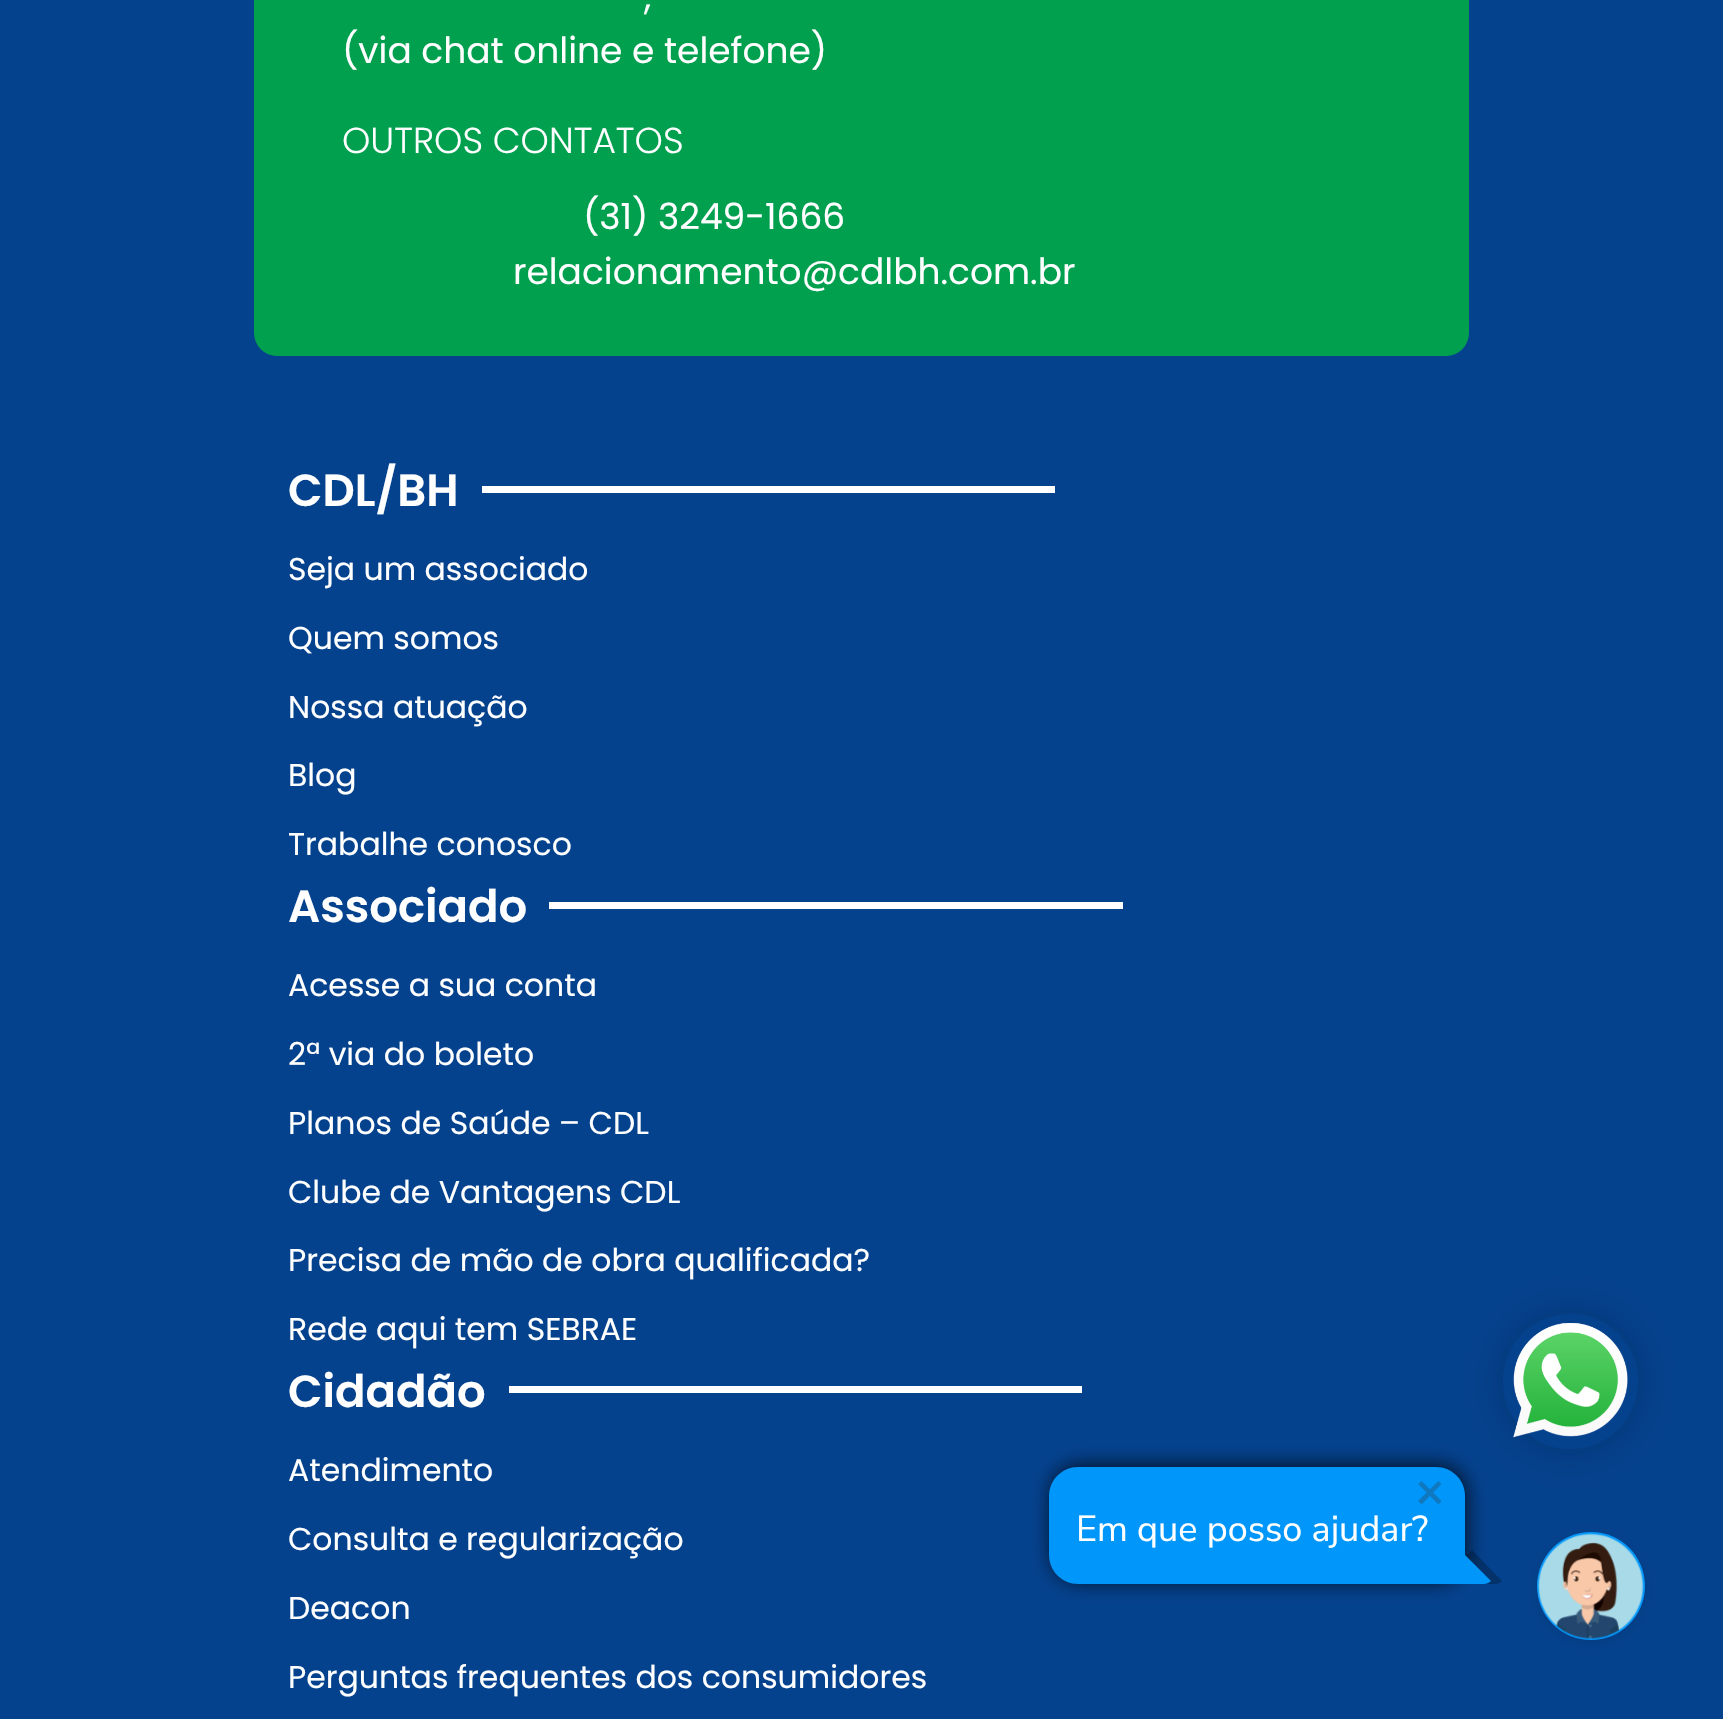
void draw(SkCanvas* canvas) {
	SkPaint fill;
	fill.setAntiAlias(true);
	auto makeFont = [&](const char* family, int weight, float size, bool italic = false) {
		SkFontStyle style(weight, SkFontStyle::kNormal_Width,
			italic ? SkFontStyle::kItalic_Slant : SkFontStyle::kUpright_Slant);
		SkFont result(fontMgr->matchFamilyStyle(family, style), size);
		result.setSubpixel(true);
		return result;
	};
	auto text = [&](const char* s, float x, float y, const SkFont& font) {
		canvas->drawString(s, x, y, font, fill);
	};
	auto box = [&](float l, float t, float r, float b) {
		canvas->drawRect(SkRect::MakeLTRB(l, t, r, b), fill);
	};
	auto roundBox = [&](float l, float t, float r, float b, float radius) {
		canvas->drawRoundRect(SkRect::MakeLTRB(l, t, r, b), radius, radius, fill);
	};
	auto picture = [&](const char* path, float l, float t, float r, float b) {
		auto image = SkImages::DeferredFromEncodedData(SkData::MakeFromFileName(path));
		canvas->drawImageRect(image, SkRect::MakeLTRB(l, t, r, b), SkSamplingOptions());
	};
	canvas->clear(0xFF05428E);
	fill.setColor(0xFF00A04E);
	roundBox(254, -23, 1469, 356, 23);
	fill.setColor(0xFFFFFFFF);
	box(482, 486, 1055, 493);
	box(549, 902, 1123, 909);
	box(509, 1386, 1082, 1393);
	fill.setColor(0xBF000000);
	fill.setMaskFilter(SkMaskFilter::MakeBlur(kNormal_SkBlurStyle, 10));
	canvas->drawRoundRect(SkRect::MakeLTRB(1051, 1465, 1467, 1582), 29, 29, fill);
	fill.setMaskFilter(nullptr);
	fill.setColor(0xFF0096FA);
	canvas->drawPath(SkPathBuilder().moveTo(1078, 1467).lineTo(1436, 1467).cubicTo(1452, 1467, 1465, 1480, 1465, 1496).lineTo(1465, 1579).cubicTo(1465, 1582, 1463, 1584, 1460, 1584).lineTo(1078, 1584).cubicTo(1062, 1584, 1049, 1571, 1049, 1555).lineTo(1049, 1496).cubicTo(1049, 1480, 1062, 1467, 1078, 1467).close().detach(), fill);
	fill.setColor(0xFF0F78BE);
	canvas->drawPath(SkPathBuilder().moveTo(1438.5f, 1481).lineTo(1441.5f, 1484).lineTo(1421.5f, 1504.5f).lineTo(1418, 1501).close().detach(), fill);
	canvas->drawPath(SkPathBuilder().moveTo(1418, 1484).lineTo(1421.5f, 1481).lineTo(1441.5f, 1501).lineTo(1438.5f, 1504.5f).close().detach(), fill);
	canvas->save();
	canvas->clipPath(SkPathBuilder(SkPathFillType::kEvenOdd).moveTo(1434, 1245).lineTo(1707, 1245).lineTo(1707, 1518).lineTo(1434, 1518).close().moveTo(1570.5f, 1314).cubicTo(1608, 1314, 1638, 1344, 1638, 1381.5f).cubicTo(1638, 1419, 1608, 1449, 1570.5f, 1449).cubicTo(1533, 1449, 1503, 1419, 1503, 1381.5f).cubicTo(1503, 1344, 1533, 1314, 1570.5f, 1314).close().detach(), true);
	fill.setColor(0x33000000);
	fill.setMaskFilter(SkMaskFilter::MakeBlur(kNormal_SkBlurStyle, 22.5f));
	canvas->drawRoundRect(SkRect::MakeLTRB(1503, 1314, 1638, 1449), 67.5f, 67.5f, fill);
	fill.setMaskFilter(nullptr);
	canvas->restore();
	picture("image0.png", 1513, 1323, 1628, 1438);
	fill.setColor(0x40000000);
	canvas->drawPath(SkPathBuilder().moveTo(1448, 1584).lineTo(1495, 1584).cubicTo(1498, 1584, 1500, 1583, 1502, 1581).lineTo(1472, 1550).lineTo(1441, 1581).cubicTo(1443, 1583, 1445, 1584, 1448, 1584).close().detach(), fill);
	fill.setColor(0xFF0096FA);
	canvas->drawPath(SkPathBuilder().moveTo(1441, 1584).lineTo(1484, 1584).cubicTo(1486, 1584, 1489, 1583, 1491, 1581).lineTo(1462, 1552).lineTo(1434, 1581).cubicTo(1436, 1583, 1438, 1584, 1441, 1584).close().detach(), fill);
	fill.setColor(0x1A000000);
	fill.setMaskFilter(SkMaskFilter::MakeBlur(kNormal_SkBlurStyle, 7));
	canvas->drawRoundRect(SkRect::MakeLTRB(1537, 1535, 1645, 1643), 54, 54, fill);
	fill.setMaskFilter(nullptr);
	fill.setColor(0xFF0096FA);
	canvas->drawCircle(1591, 1586, 54, fill);
	picture("image1.png", 1537, 1533, 1644, 1640);
	auto font1 = makeFont("Poppins", 400, 36);
	fill.setColor(0xFFFFFFFF);
	text(",", 644, 9, font1);
	text("(via chat online e telefone)", 342, 63, font1);
	auto font2 = makeFont("Poppins", 300, 36);
	text("OUTROS CONTATOS", 342, 153, font2);
	text("(31) 3249-1666", 583, 229, font1);
	text("relacionamento@cdlbh.com.br", 513, 284, font1);
	auto font3 = makeFont("Poppins", 600, 45);
	text("CDL/BH", 288, 506, font3);
	auto font4 = makeFont("Poppins", 400, 31.5f);
	text("Seja um associado", 288, 580, font4);
	text("Quem somos", 288, 649, font4);
	text("Nossa atuação", 288, 718, font4);
	text("Blog", 288, 786, font4);
	text("Trabalhe conosco", 288, 855, font4);
	text("Associado", 288, 922, font3);
	text("Acesse a sua conta", 288, 996, font4);
	text("2ª via do boleto", 288, 1065, font4);
	text("Planos de Saúde – CDL", 288, 1134, font4);
	text("Clube de Vantagens CDL", 288, 1203, font4);
	text("Precisa de mão de obra qualificada?", 288, 1271, font4);
	text("Rede aqui tem SEBRAE", 288, 1340, font4);
	text("Cidadão", 288, 1407, font3);
	text("Atendimento", 288, 1481, font4);
	text("Consulta e regularização", 288, 1550, font4);
	text("Deacon", 288, 1619, font4);
	text("Perguntas frequentes dos consumidores", 288, 1688, font4);
	auto font5 = makeFont("Nunito Sans", 400, 36);
	text("Em que posso ajudar?", 1076, 1541, font5);
}
